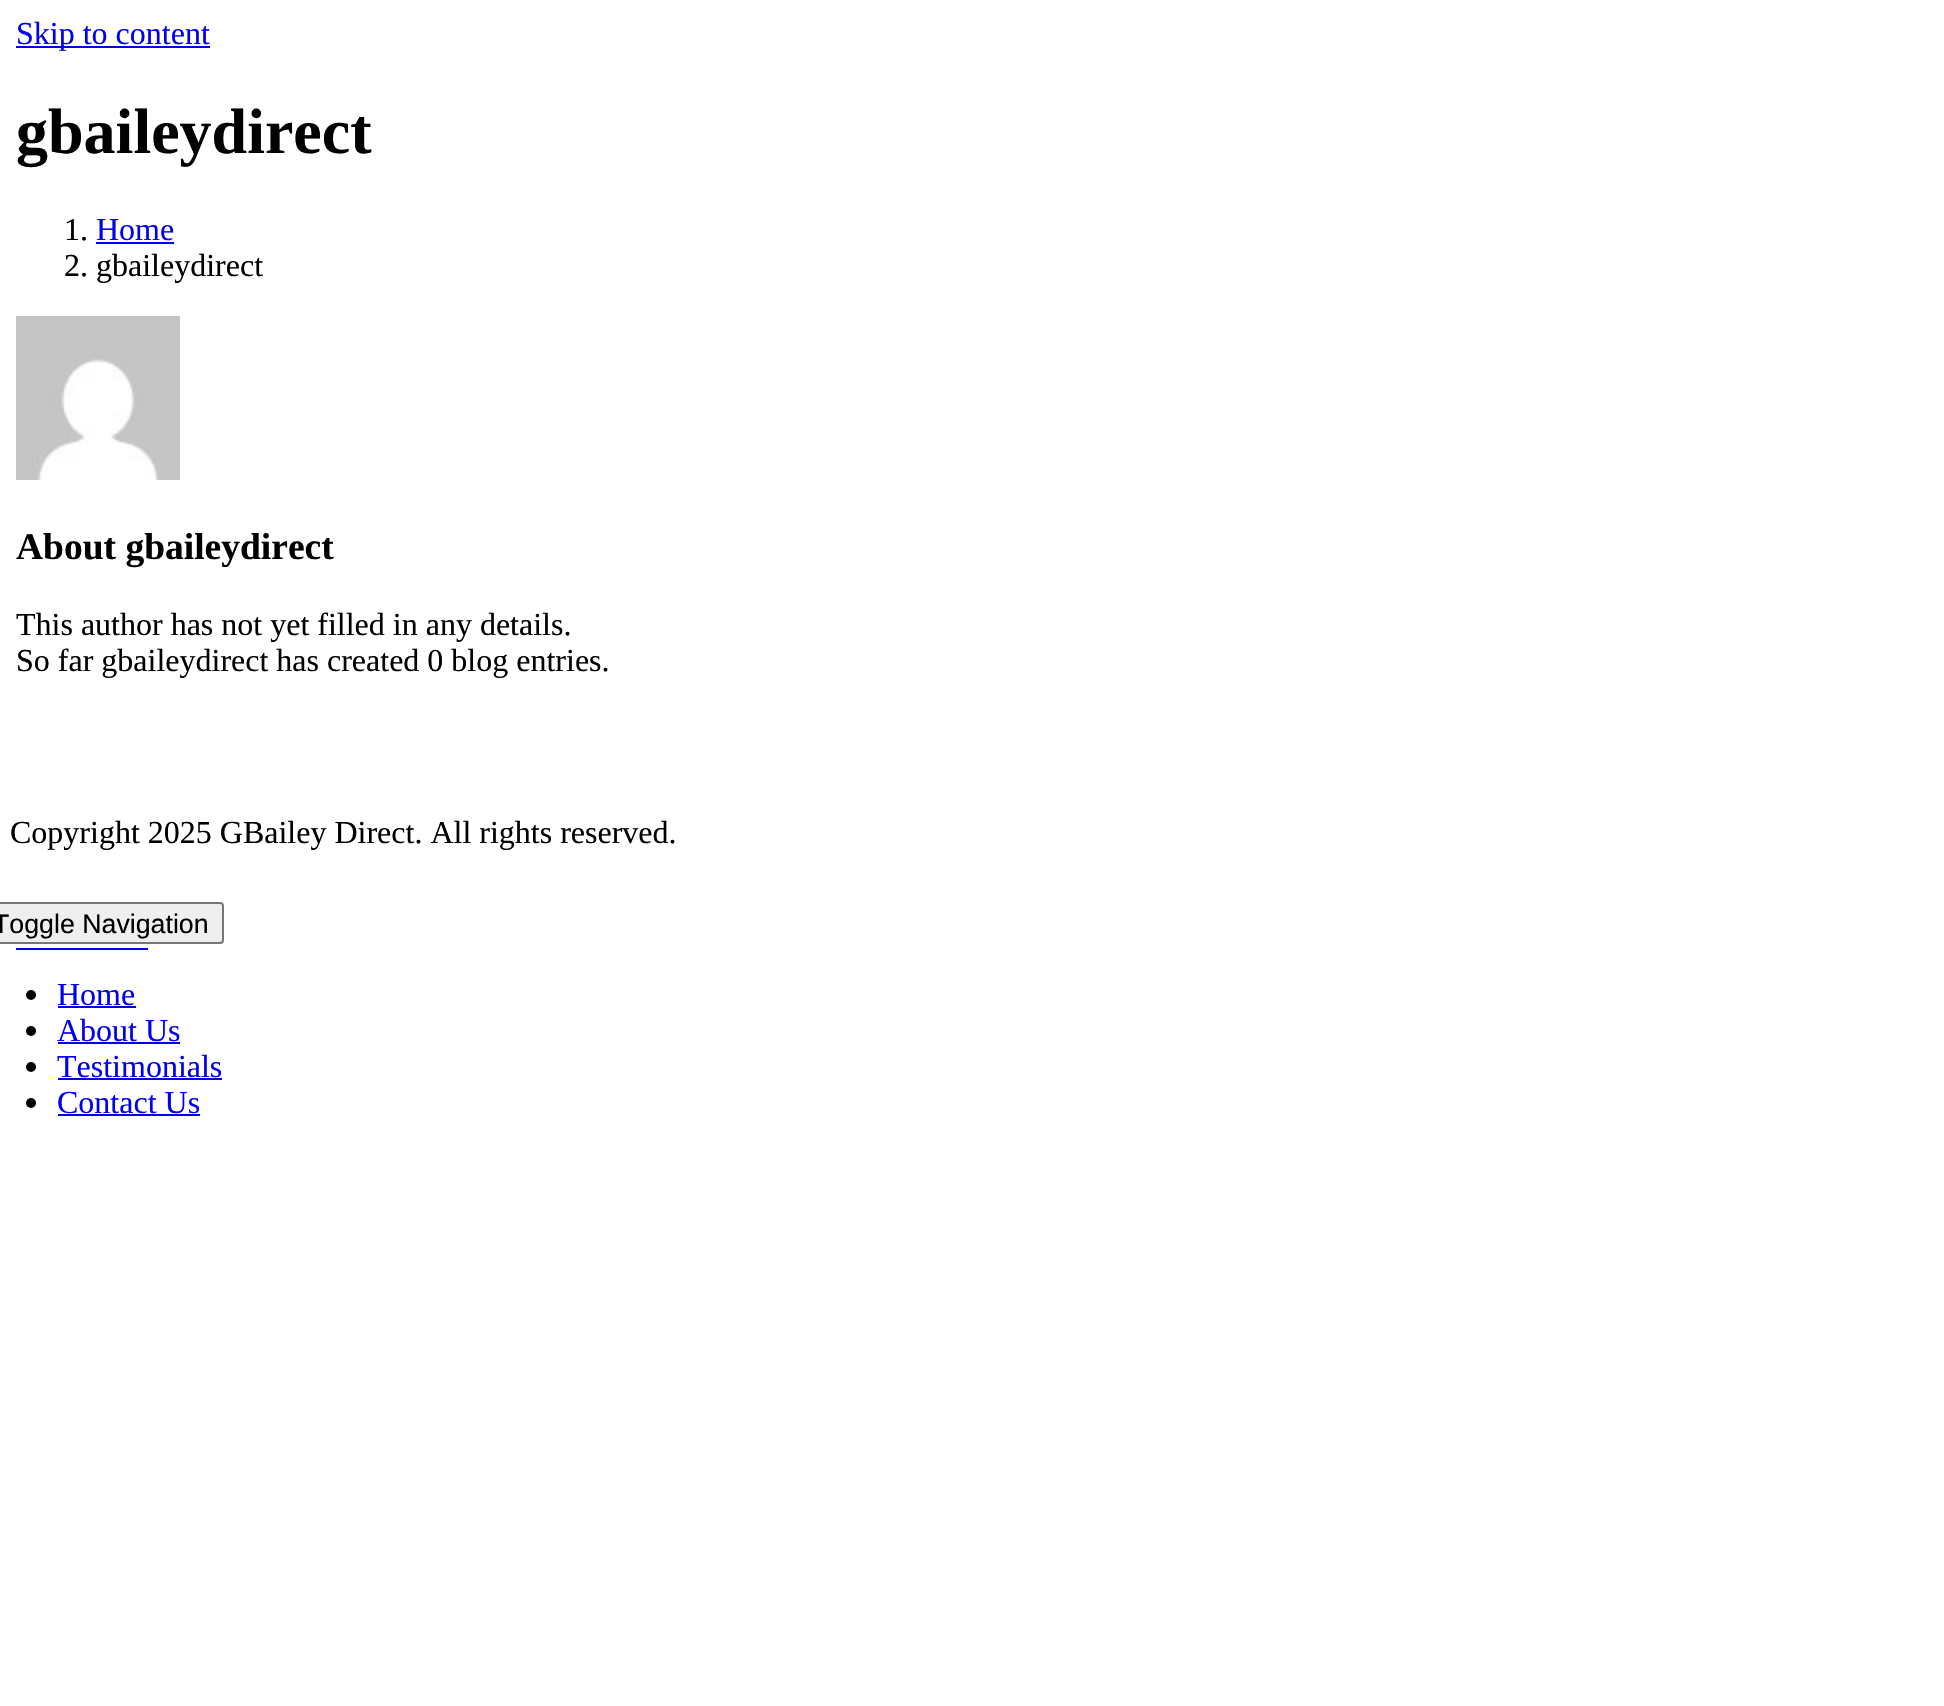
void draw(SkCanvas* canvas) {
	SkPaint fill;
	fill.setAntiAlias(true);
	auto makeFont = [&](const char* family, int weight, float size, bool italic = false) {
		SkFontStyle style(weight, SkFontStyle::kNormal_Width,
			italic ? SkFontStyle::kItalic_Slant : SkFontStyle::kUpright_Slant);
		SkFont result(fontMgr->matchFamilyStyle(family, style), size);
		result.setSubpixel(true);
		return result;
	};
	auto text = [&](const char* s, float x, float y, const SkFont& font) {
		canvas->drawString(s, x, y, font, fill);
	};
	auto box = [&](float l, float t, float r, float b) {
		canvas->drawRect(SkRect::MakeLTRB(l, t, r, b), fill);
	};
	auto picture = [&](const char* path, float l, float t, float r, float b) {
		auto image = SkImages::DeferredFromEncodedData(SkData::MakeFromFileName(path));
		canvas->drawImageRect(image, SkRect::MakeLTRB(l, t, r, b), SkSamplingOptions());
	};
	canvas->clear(0xFFFFFFFF);
	fill.setColor(0xFF0000EE);
	box(16, 46, 210, 48);
	box(96, 242, 174, 244);
	picture("image0.png", 16, 316, 180, 480);
	fill.setColor(0xFFEFEFEF);
	canvas->drawRoundRect(SkRect::MakeLTRB(-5, 903, 223, 943), 3, 3, fill);
	fill.setStyle(SkPaint::kStroke_Style);
	fill.setStrokeWidth(2);
	fill.setColor(0xFF767676);
	canvas->drawRoundRect(SkRect::MakeLTRB(-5, 903, 223, 943), 3, 3, fill);
	fill.setStyle(SkPaint::kFill_Style);
	fill.setColor(0xFF000000);
	canvas->drawCircle(31, 995, 5, fill);
	fill.setColor(0xFF0000EE);
	box(58, 1006, 136, 1008);
	fill.setColor(0xFF000000);
	canvas->drawCircle(31, 1031, 5, fill);
	fill.setColor(0xFF0000EE);
	box(58, 1042, 180, 1044);
	fill.setColor(0xFF000000);
	canvas->drawCircle(31, 1067, 5, fill);
	fill.setColor(0xFF0000EE);
	box(58, 1078, 222, 1080);
	fill.setColor(0xFF000000);
	canvas->drawCircle(31, 1103, 5, fill);
	fill.setColor(0xFF0000EE);
	box(58, 1114, 200, 1116);
	box(16, 948, 148, 950);
	auto font1 = makeFont("Liberation Serif", 400, 32);
	text("Skip to content", 16, 44, font1);
	auto font2 = makeFont("Liberation Serif", 700, 64);
	fill.setColor(0xFF000000);
	text("gbaileydirect", 16, 153, font2);
	text("1.", 64, 240, font1);
	fill.setColor(0xFF0000EE);
	text("Home", 96, 240, font1);
	fill.setColor(0xFF000000);
	text("2. gbaileydirect", 64, 276, font1);
	auto font3 = makeFont("Liberation Serif", 700, 37.5f);
	text("About gbaileydirect", 16, 559, font3);
	text("This author has not yet filled in any details.", 16, 635, font1);
	text("So far gbaileydirect has created 0 blog entries.", 16, 671, font1);
	text("Copyright 2025 GBailey Direct. All rights reserved.", 10, 843, font1);
	auto font4 = makeFont("Liberation Sans", 400, 26.75f);
	text("Toggle Navigation", -7, 933, font4);
	fill.setColor(0xFF0000EE);
	text("Home", 57, 1005, font1);
	text("About Us", 57, 1041, font1);
	text("Testimonials", 57, 1077, font1);
	text("Contact Us", 57, 1113, font1);
}
